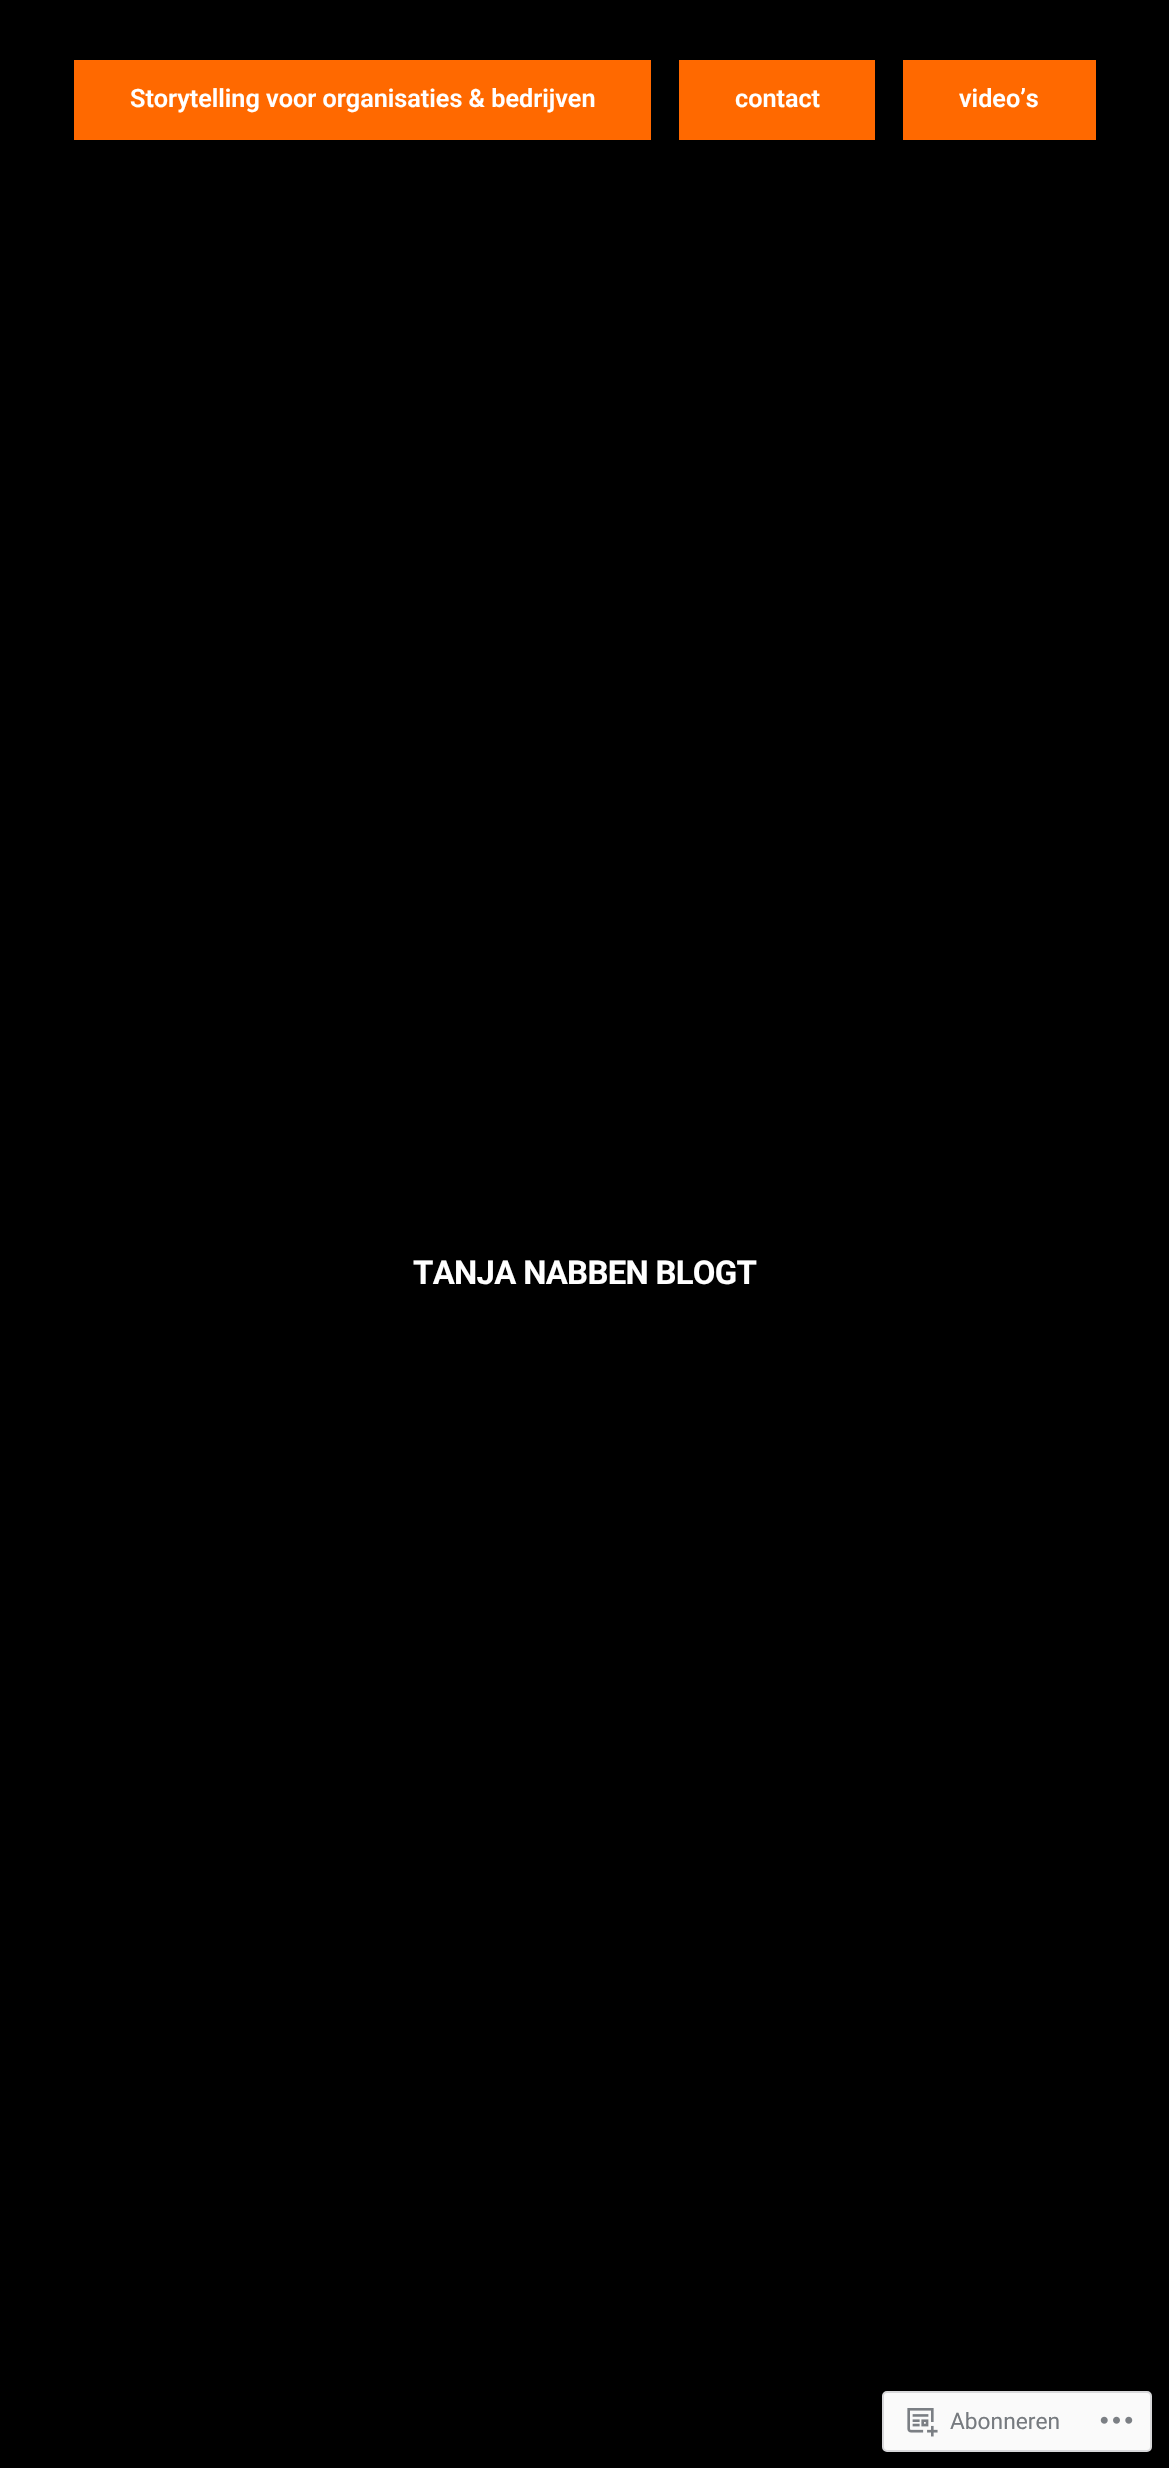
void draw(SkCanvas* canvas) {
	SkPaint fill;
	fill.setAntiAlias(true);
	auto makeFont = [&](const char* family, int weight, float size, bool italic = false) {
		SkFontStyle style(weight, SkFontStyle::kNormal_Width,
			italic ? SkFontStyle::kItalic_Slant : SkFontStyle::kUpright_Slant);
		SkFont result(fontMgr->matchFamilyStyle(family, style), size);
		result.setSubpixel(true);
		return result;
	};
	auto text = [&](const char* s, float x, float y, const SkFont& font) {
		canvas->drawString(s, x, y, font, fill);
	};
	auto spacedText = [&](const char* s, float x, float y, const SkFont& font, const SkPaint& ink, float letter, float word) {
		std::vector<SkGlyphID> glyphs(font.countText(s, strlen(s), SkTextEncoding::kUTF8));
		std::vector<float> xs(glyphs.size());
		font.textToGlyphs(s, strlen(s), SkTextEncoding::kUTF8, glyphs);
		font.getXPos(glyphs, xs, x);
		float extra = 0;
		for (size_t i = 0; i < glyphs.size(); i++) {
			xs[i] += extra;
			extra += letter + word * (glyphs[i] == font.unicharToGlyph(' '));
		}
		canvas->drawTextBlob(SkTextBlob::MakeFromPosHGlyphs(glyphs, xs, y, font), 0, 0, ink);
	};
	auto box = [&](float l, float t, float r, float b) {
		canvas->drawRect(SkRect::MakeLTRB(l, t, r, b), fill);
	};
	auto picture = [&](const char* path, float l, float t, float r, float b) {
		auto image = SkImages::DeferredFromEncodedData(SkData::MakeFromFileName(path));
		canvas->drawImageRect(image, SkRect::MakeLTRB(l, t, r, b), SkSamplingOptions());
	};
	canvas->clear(0xFF000000);
	fill.setColor(0xFFFF6900);
	box(74, 60, 651, 140);
	box(679, 60, 875, 140);
	box(903, 60, 1096, 140);
	fill.setColor(0xFFFAFAFA);
	canvas->drawRoundRect(SkRect::MakeLTRB(883, 2392, 1151, 2451), 4, 4, fill);
	fill.setStyle(SkPaint::kStroke_Style);
	fill.setStrokeWidth(2);
	fill.setColor(0xFFD8D8DA);
	canvas->drawRoundRect(SkRect::MakeLTRB(883, 2392, 1151, 2451), 4, 4, fill);
	picture("image0.png", 907, 2408, 938, 2437);
	picture("image1.png", 1100, 2416, 1133, 2424);
	auto font1 = makeFont("Roboto", 600, 25.2f);
	fill.setStyle(SkPaint::kFill_Style);
	fill.setColor(0xFFFFFFFF);
	text("Storytelling voor organisaties & bedrijven", 130, 107, font1);
	text("contact", 735, 107, font1);
	text("video’s", 959, 107, font1);
	auto font2 = makeFont("Roboto", 700, 32.9f);
	spacedText("TANJA NABBEN BLOGT", 413, 1284, font2, fill, -0.7f, 0);
	auto font3 = makeFont("Roboto", 400, 22.75f);
	fill.setColor(0xFF767A7F);
	text("Abonneren", 950, 2429, font3);
}
